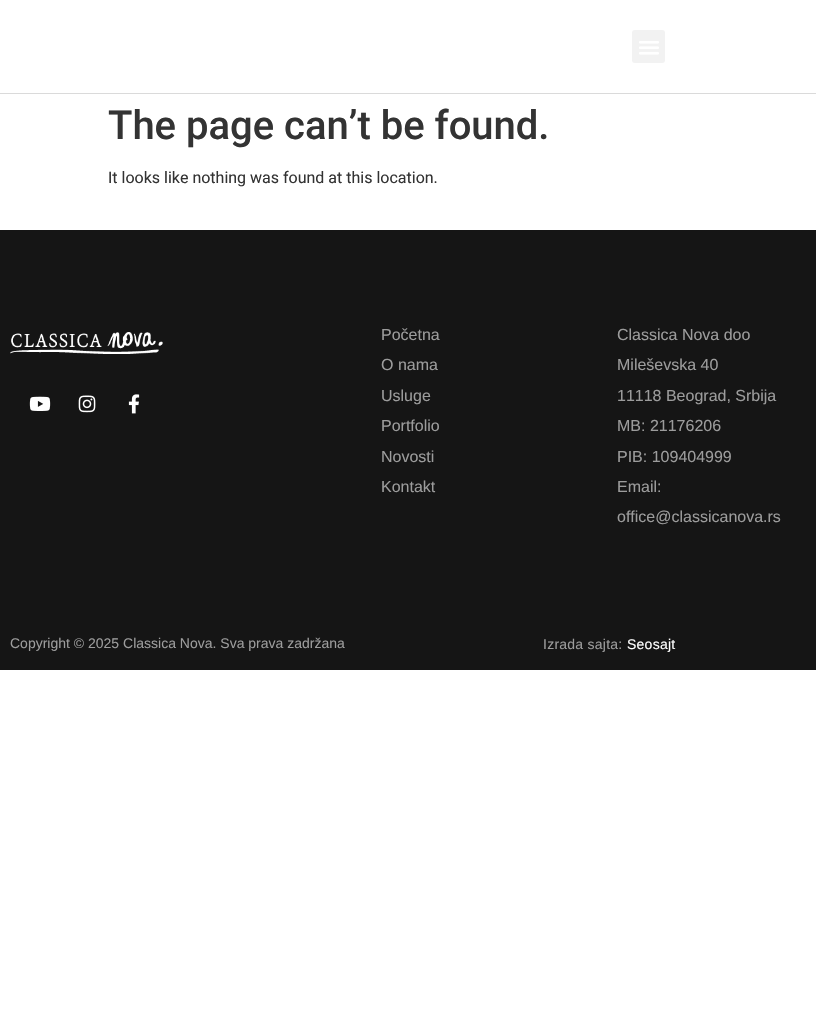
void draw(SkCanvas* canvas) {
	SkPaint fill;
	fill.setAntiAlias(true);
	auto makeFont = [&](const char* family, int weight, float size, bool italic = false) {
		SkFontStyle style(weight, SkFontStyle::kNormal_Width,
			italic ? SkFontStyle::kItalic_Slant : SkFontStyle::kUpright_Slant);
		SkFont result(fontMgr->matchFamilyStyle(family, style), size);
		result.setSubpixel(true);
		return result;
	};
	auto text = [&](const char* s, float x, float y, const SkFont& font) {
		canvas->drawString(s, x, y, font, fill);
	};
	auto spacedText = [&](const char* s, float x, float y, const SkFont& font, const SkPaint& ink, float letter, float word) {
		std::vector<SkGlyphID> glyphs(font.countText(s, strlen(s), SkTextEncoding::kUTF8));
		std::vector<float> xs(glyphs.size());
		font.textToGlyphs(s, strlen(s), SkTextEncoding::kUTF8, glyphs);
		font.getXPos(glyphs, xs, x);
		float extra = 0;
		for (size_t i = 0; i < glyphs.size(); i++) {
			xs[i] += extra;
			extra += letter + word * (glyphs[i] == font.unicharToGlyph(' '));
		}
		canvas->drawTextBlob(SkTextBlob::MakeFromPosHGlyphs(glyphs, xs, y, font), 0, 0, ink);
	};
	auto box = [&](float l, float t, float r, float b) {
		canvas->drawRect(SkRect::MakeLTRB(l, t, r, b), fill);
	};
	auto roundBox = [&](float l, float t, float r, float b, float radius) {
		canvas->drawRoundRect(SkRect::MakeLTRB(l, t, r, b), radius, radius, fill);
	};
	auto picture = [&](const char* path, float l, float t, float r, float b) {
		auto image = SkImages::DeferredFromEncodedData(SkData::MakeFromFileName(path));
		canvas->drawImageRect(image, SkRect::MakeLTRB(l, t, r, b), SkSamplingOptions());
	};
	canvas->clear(0xFFFFFFFF);
	fill.setColor(0xFFDADADA);
	box(0, 93, 816, 94);
	fill.setColor(0xFFF2F2F2);
	roundBox(632, 30, 665, 63, 3);
	picture("image0.png", 639, 41, 659, 55);
	fill.setColor(0xFF151515);
	box(0, 230, 816, 670);
	picture("image1.png", 10, 332, 163, 354);
	picture("image2.png", 29, 396, 51, 411);
	picture("image3.png", 78, 395, 96, 413);
	picture("image4.png", 128, 394, 140, 414);
	auto font1 = makeFont("Roboto", 500, 40);
	fill.setColor(0xFF333333);
	text("The page can’t be found.", 108, 139, font1);
	auto font2 = makeFont("Roboto", 400, 16);
	text("It looks like nothing was found at this location.", 108, 183, font2);
	auto font3 = makeFont("Liberation Sans", 400, 16);
	fill.setColor(0xFF9C9C9C);
	text("Početna", 381, 340, font3);
	text("O nama", 381, 370, font3);
	text("Usluge", 381, 401, font3);
	text("Portfolio", 381, 431, font3);
	text("Novosti", 381, 462, font3);
	text("Kontakt", 381, 492, font3);
	text("Classica Nova doo", 617, 340, font3);
	text("Mileševska 40", 617, 370, font3);
	text("11118 Beograd, Srbija", 617, 401, font3);
	text("MB: 21176206", 617, 431, font3);
	text("PIB: 109404999", 617, 462, font3);
	text("Email:", 617, 492, font3);
	text("office@classicanova.rs", 617, 522, font3);
	auto font4 = makeFont("Liberation Sans", 400, 14);
	text("Copyright © 2025 Classica Nova. Sva prava zadržana", 10, 648, font4);
	spacedText("Izrada sajta:", 543, 649, font4, fill, 0.25f, 0);
	fill.setColor(0xFFFFFFFF);
	spacedText("Seosajt", 627, 649, font4, fill, 0.25f, 0);
}
